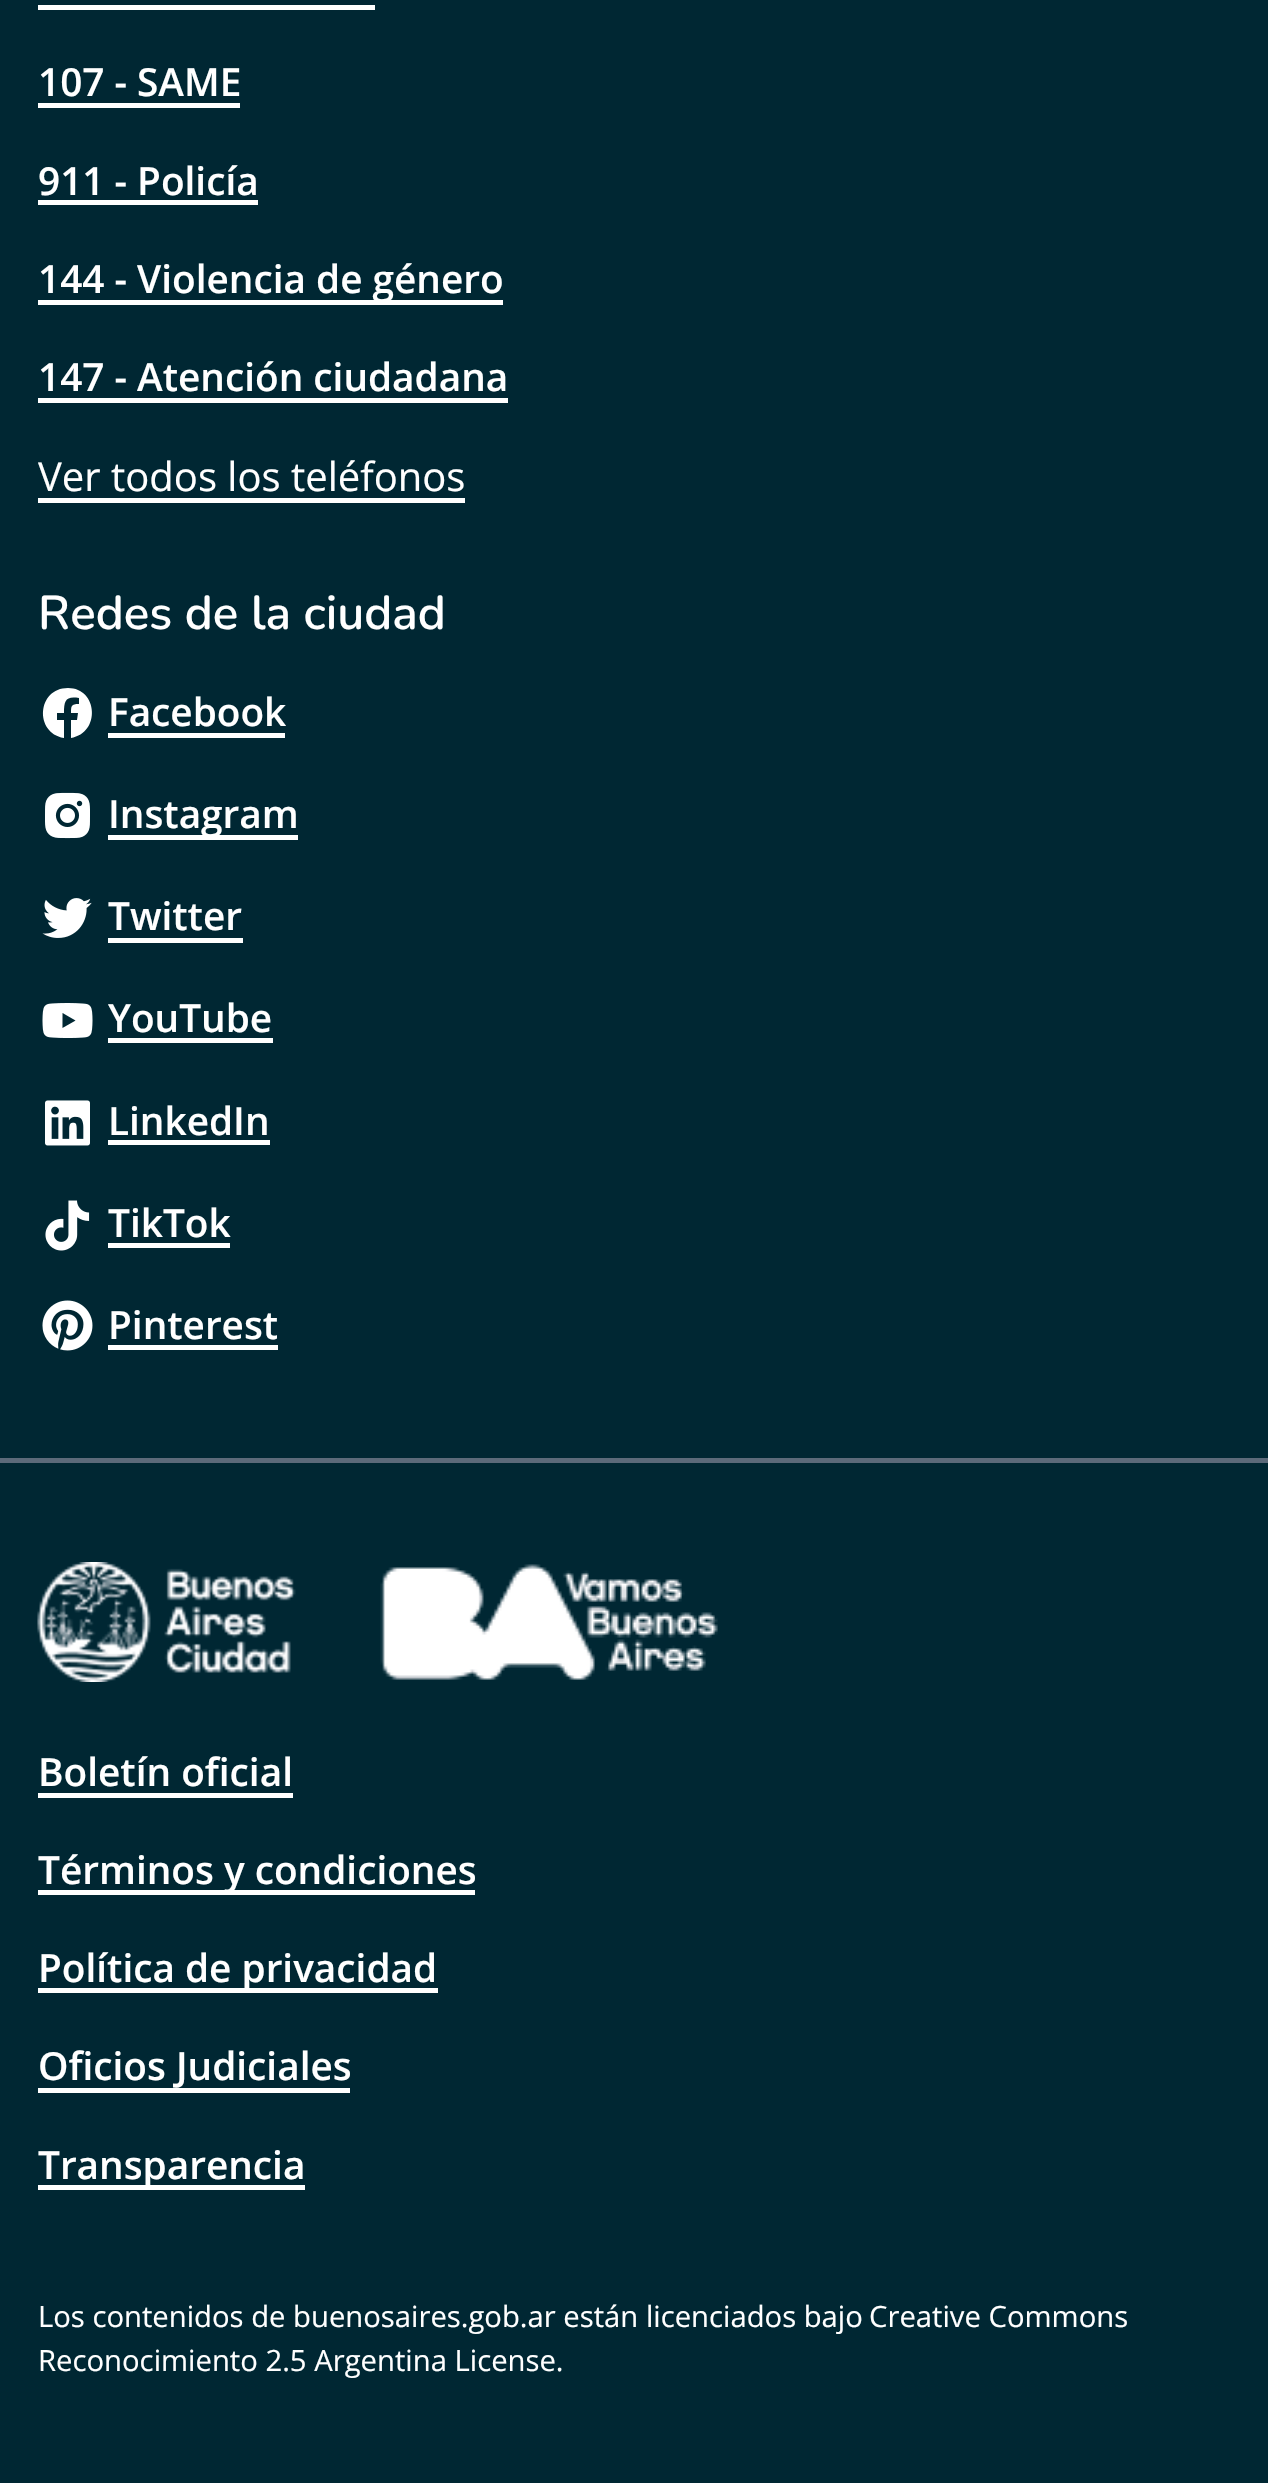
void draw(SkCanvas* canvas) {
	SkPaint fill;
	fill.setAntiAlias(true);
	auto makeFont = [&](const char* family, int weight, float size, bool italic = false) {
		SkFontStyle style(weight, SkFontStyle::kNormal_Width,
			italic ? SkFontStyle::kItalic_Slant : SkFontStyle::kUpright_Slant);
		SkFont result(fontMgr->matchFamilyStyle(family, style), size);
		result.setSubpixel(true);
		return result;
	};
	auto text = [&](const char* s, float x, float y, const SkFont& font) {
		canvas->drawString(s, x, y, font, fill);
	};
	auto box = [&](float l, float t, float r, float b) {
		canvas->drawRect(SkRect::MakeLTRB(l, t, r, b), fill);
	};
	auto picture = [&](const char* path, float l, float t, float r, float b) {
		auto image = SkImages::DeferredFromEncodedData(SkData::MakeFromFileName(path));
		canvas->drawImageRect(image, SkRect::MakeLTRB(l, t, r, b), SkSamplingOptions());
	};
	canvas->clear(0xFF002733);
	fill.setColor(0xFFFFFFFF);
	box(38, 5, 375, 10);
	box(38, 103, 240, 108);
	box(38, 200, 258, 205);
	box(38, 300, 503, 305);
	box(38, 398, 508, 403);
	box(38, 498, 465, 503);
	canvas->drawPath(SkPathBuilder().moveTo(68, 688).cubicTo(37, 688, 34, 733, 64, 738).lineTo(64, 720).lineTo(57, 720).lineTo(57, 713).lineTo(64, 713).cubicTo(64, 700, 66, 696, 79, 698).lineTo(79, 704).cubicTo(71, 704, 71, 706, 71, 713).lineTo(78, 713).lineTo(77, 720).lineTo(71, 720).lineTo(71, 738).cubicTo(101, 733, 98, 688, 68, 688).close().detach(), fill);
	box(108, 733, 285, 738);
	picture("image0.png", 45, 792, 90, 839);
	box(108, 835, 298, 840);
	picture("image1.png", 42, 898, 92, 938);
	box(108, 938, 243, 943);
	picture("image2.png", 42, 1003, 93, 1038);
	box(108, 1038, 273, 1043);
	picture("image3.png", 45, 1100, 90, 1146);
	box(108, 1140, 270, 1145);
	picture("image4.png", 45, 1200, 90, 1251);
	box(108, 1243, 230, 1248);
	picture("image5.png", 42, 1300, 93, 1351);
	box(108, 1345, 278, 1350);
	fill.setColor(0xFF5C6A7A);
	box(0, 1458, 1268, 1463);
	picture("image6.png", 37, 1562, 296, 1682);
	picture("image7.png", 380, 1564, 718, 1680);
	fill.setColor(0xFFFFFFFF);
	box(38, 1793, 293, 1798);
	box(38, 1890, 475, 1895);
	box(38, 1988, 438, 1993);
	box(38, 2088, 350, 2093);
	box(38, 2185, 305, 2190);
	auto font1 = makeFont("Open Sans", 600, 38.75f);
	text("107 - SAME", 38, 96, font1);
	text("911 - Policía", 38, 195, font1);
	text("144 - Violencia de género", 38, 293, font1);
	text("147 - Atención ciudadana", 38, 391, font1);
	auto font2 = makeFont("Open Sans", 400, 40);
	text("Ver todos los teléfonos", 38, 491, font2);
	auto font3 = makeFont("Nunito", 600, 47.5f);
	text("Redes de la ciudad", 38, 629, font3);
	text("Facebook", 108, 726, font1);
	text("Instagram", 108, 828, font1);
	text("Twitter", 108, 930, font1);
	text("YouTube", 108, 1032, font1);
	text("LinkedIn", 108, 1135, font1);
	text("TikTok", 108, 1237, font1);
	text("Pinterest", 108, 1339, font1);
	text("Boletín oficial", 38, 1786, font1);
	text("Términos y condiciones", 38, 1884, font1);
	text("Política de privacidad", 38, 1982, font1);
	text("Oficios Judiciales", 38, 2080, font1);
	text("Transparencia", 38, 2179, font1);
	auto font4 = makeFont("Open Sans", 400, 29.25f);
	text("Los contenidos de buenosaires.gob.ar están licenciados bajo", 38, 2327, font4);
	text("Creative Commons", 869, 2327, font4);
	text("Reconocimiento 2.5 Argentina License.", 38, 2371, font4);
}
